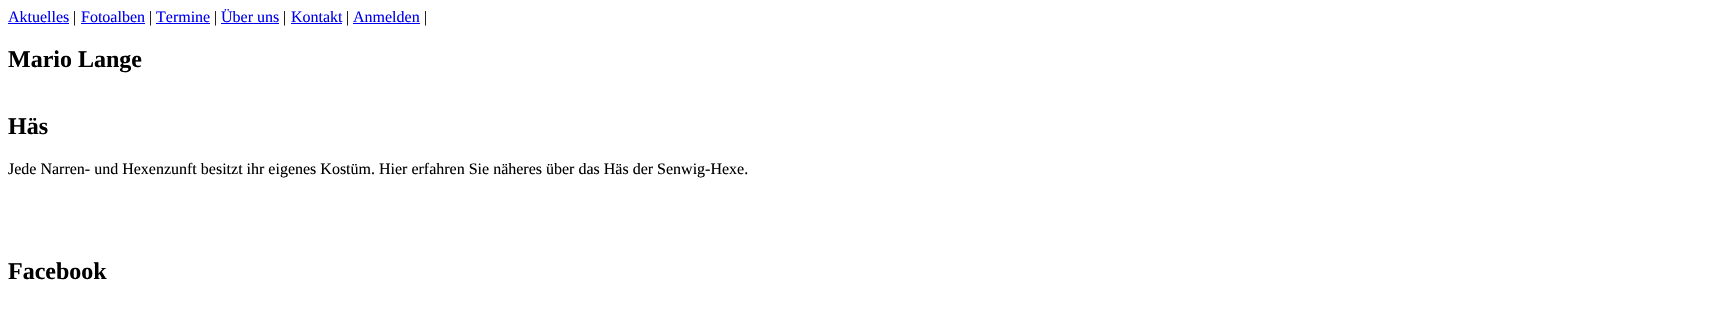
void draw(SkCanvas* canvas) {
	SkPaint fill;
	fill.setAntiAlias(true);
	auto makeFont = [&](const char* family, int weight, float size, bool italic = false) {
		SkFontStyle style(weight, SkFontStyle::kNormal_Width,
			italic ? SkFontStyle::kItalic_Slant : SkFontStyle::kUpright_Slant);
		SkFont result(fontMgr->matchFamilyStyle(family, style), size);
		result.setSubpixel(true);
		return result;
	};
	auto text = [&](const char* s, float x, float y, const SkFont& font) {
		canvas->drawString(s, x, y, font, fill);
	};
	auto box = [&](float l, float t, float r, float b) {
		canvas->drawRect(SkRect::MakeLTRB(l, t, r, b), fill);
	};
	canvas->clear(0xFFFFFFFF);
	fill.setColor(0xFF0000EE);
	box(8, 23, 69, 24);
	box(81, 23, 145, 24);
	box(156, 23, 210, 24);
	box(221, 23, 279, 24);
	box(291, 23, 342, 24);
	box(353, 23, 420, 24);
	auto font1 = makeFont("Liberation Serif", 400, 16);
	text("Aktuelles", 8, 22, font1);
	fill.setColor(0xFF000000);
	text("|", 73, 22, font1);
	fill.setColor(0xFF0000EE);
	text("Fotoalben", 81, 22, font1);
	fill.setColor(0xFF000000);
	text("|", 149, 22, font1);
	fill.setColor(0xFF0000EE);
	text("Termine", 156, 22, font1);
	fill.setColor(0xFF000000);
	text("|", 214, 22, font1);
	fill.setColor(0xFF0000EE);
	text("Über uns", 221, 22, font1);
	fill.setColor(0xFF000000);
	text("|", 283, 22, font1);
	fill.setColor(0xFF0000EE);
	text("Kontakt", 291, 22, font1);
	fill.setColor(0xFF000000);
	text("|", 346, 22, font1);
	fill.setColor(0xFF0000EE);
	text("Anmelden", 353, 22, font1);
	fill.setColor(0xFF000000);
	text("|", 424, 22, font1);
	auto font2 = makeFont("Liberation Serif", 700, 24);
	text("Mario Lange", 8, 67, font2);
	text("Häs", 8, 134, font2);
	text("Jede Narren- und Hexenzunft besitzt ihr eigenes Kostüm. Hier erfahren Sie näheres über das Häs der Senwig-Hexe.", 8, 174, font1);
	text("Facebook", 8, 279, font2);
}
